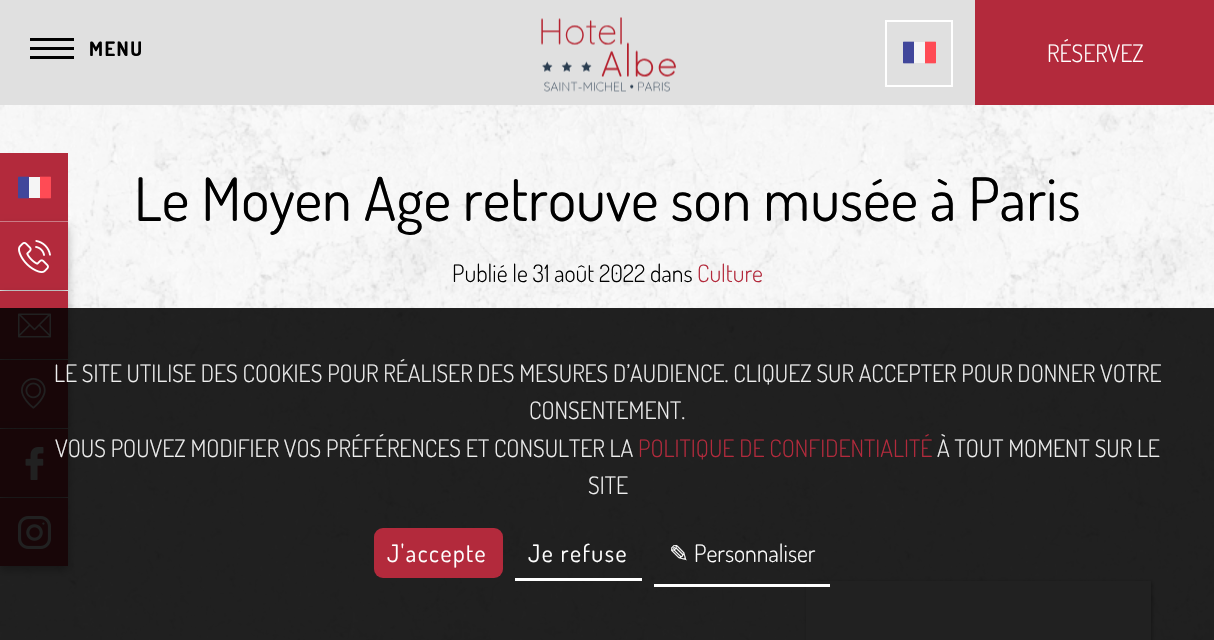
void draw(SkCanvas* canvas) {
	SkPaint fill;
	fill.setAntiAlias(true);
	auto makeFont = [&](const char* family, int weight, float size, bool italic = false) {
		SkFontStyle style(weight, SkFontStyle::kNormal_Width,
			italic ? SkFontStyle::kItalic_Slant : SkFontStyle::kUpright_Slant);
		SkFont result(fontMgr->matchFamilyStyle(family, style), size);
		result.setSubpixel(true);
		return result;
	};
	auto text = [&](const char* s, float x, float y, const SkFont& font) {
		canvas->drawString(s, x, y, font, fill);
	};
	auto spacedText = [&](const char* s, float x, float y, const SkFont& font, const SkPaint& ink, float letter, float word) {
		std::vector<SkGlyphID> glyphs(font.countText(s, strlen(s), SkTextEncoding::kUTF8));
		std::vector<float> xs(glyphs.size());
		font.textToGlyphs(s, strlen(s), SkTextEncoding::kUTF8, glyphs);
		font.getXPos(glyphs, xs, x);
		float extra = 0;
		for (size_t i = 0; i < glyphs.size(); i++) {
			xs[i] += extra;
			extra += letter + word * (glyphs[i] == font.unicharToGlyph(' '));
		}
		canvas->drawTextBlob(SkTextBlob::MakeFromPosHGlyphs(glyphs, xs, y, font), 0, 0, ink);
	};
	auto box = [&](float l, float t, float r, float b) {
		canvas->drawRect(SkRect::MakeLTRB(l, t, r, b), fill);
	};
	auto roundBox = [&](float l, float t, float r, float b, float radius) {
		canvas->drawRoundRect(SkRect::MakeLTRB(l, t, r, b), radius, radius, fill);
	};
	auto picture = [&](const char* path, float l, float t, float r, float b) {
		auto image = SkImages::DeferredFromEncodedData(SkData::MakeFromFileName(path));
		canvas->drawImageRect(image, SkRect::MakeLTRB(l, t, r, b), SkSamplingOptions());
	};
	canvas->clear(0xFFFFFFFF);
	picture("image0.png", 0, 105, 1214, 640);
	fill.setColor(0xFFE0E0E0);
	box(0, 0, 975, 105);
	fill.setColor(0xFF000000);
	box(30, 38, 74, 41);
	box(30, 47, 74, 50);
	box(30, 56, 74, 59);
	picture("image1.png", 541, 17, 676, 92);
	fill.setStyle(SkPaint::kStroke_Style);
	fill.setStrokeWidth(2);
	fill.setColor(0xFFFFFFFF);
	canvas->drawRect(SkRect::MakeLTRB(886, 21, 952, 86), fill);
	picture("image2.png", 903, 41, 936, 64);
	fill.setStyle(SkPaint::kFill_Style);
	fill.setColor(0xFFB32A3C);
	box(975, 0, 1214, 105);
	box(0, 153, 68, 222);
	fill.setColor(0x66FFFFFF);
	box(0, 221, 68, 222);
	picture("image3.png", 18, 176, 51, 199);
	box(0, 290, 68, 291);
	fill.setColor(0x4A000000);
	fill.setMaskFilter(SkMaskFilter::MakeBlur(kNormal_SkBlurStyle, 4.5f));
	canvas->drawRect(SkRect::MakeLTRB(0, 227, 68, 294), fill);
	fill.setMaskFilter(nullptr);
	fill.setColor(0xFFB32A3C);
	box(0, 222, 68, 290);
	picture("image4.png", 18, 240, 51, 273);
	fill.setColor(0x66FFFFFF);
	box(0, 359, 68, 360);
	fill.setColor(0x4A000000);
	fill.setMaskFilter(SkMaskFilter::MakeBlur(kNormal_SkBlurStyle, 4.5f));
	canvas->drawRect(SkRect::MakeLTRB(0, 296, 68, 363), fill);
	fill.setMaskFilter(nullptr);
	fill.setColor(0xFFB32A3C);
	box(0, 291, 68, 359);
	picture("image5.png", 18, 313, 51, 338);
	fill.setColor(0x66FFFFFF);
	box(0, 428, 68, 429);
	fill.setColor(0x4A000000);
	fill.setMaskFilter(SkMaskFilter::MakeBlur(kNormal_SkBlurStyle, 4.5f));
	canvas->drawRect(SkRect::MakeLTRB(0, 365, 68, 432), fill);
	fill.setMaskFilter(nullptr);
	fill.setColor(0xFFB32A3C);
	box(0, 360, 68, 428);
	picture("image6.png", 21, 378, 46, 409);
	fill.setColor(0x66FFFFFF);
	box(0, 497, 68, 498);
	fill.setColor(0x4A000000);
	fill.setMaskFilter(SkMaskFilter::MakeBlur(kNormal_SkBlurStyle, 4.5f));
	canvas->drawRect(SkRect::MakeLTRB(0, 434, 68, 501), fill);
	fill.setMaskFilter(nullptr);
	fill.setColor(0xFFB32A3C);
	box(0, 429, 68, 497);
	picture("image7.png", 25, 447, 44, 480);
	fill.setColor(0x4A000000);
	fill.setMaskFilter(SkMaskFilter::MakeBlur(kNormal_SkBlurStyle, 4.5f));
	canvas->drawRect(SkRect::MakeLTRB(0, 503, 68, 570), fill);
	fill.setMaskFilter(nullptr);
	fill.setColor(0xFFB32A3C);
	box(0, 498, 68, 566);
	picture("image8.png", 18, 516, 51, 549);
	canvas->save();
	canvas->clipPath(SkPathBuilder(SkPathFillType::kEvenOdd).moveTo(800, 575).lineTo(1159, 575).lineTo(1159, 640).lineTo(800, 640).close().moveTo(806, 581).lineTo(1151, 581).lineTo(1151, 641).lineTo(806, 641).close().detach(), true);
	fill.setColor(0x57000000);
	fill.setMaskFilter(SkMaskFilter::MakeBlur(kNormal_SkBlurStyle, 2));
	canvas->drawRect(SkRect::MakeLTRB(807, 582, 1152, 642), fill);
	fill.setMaskFilter(nullptr);
	canvas->restore();
	fill.setColor(0xE6FFFFFF);
	box(806, 581, 1151, 640);
	fill.setColor(0xDE000000);
	box(0, 308, 1214, 640);
	fill.setColor(0xFFB32A3C);
	roundBox(374, 528, 503, 578, 9);
	fill.setColor(0xFFFFFFFF);
	box(515, 578, 642, 581);
	box(654, 584, 830, 587);
	auto font1 = makeFont("Dosis", 700, 20);
	fill.setColor(0xFF000000);
	spacedText("MENU", 89, 56, font1, fill, 1.5f, 0);
	auto font2 = makeFont("Dosis", 300, 24);
	fill.setColor(0xFFFFFFFF);
	text("RÉSERVEZ", 1047, 62, font2);
	auto font3 = makeFont("Dosis", 400, 60);
	fill.setColor(0xFF000000);
	text("Le Moyen Age retrouve son musée à Paris", 134, 221, font3);
	text("Publié le 31 août 2022 dans", 452, 282, font2);
	fill.setColor(0xFFB32A3C);
	text("Culture", 697, 282, font2);
	fill.setColor(0xFFEEEEEE);
	text("LE SITE UTILISE DES COOKIES POUR RÉALISER DES MESURES D’AUDIENCE. CLIQUEZ SUR ACCEPTER POUR DONNER VOTRE", 54, 382, font2);
	text("CONSENTEMENT.", 529, 419, font2);
	text("VOUS POUVEZ MODIFIER VOS PRÉFÉRENCES ET CONSULTER LA", 55, 457, font2);
	fill.setColor(0xFFB32A3C);
	text("POLITIQUE DE CONFIDENTIALITÉ", 638, 457, font2);
	fill.setColor(0xFFEEEEEE);
	text("À TOUT MOMENT SUR LE", 937, 457, font2);
	text("SITE", 588, 494, font2);
	auto font4 = makeFont("Dosis", 400, 24);
	fill.setColor(0xFFFFFFFF);
	spacedText("J'accepte", 387, 562, font4, fill, 1.5f, 0);
	spacedText("Je refuse", 528, 562, font4, fill, 1.5f, 0);
	auto font5 = makeFont("DejaVu Sans", 400, 24);
	text("✎", 669, 562, font5);
	text("Personnaliser", 694, 562, font2);
}
